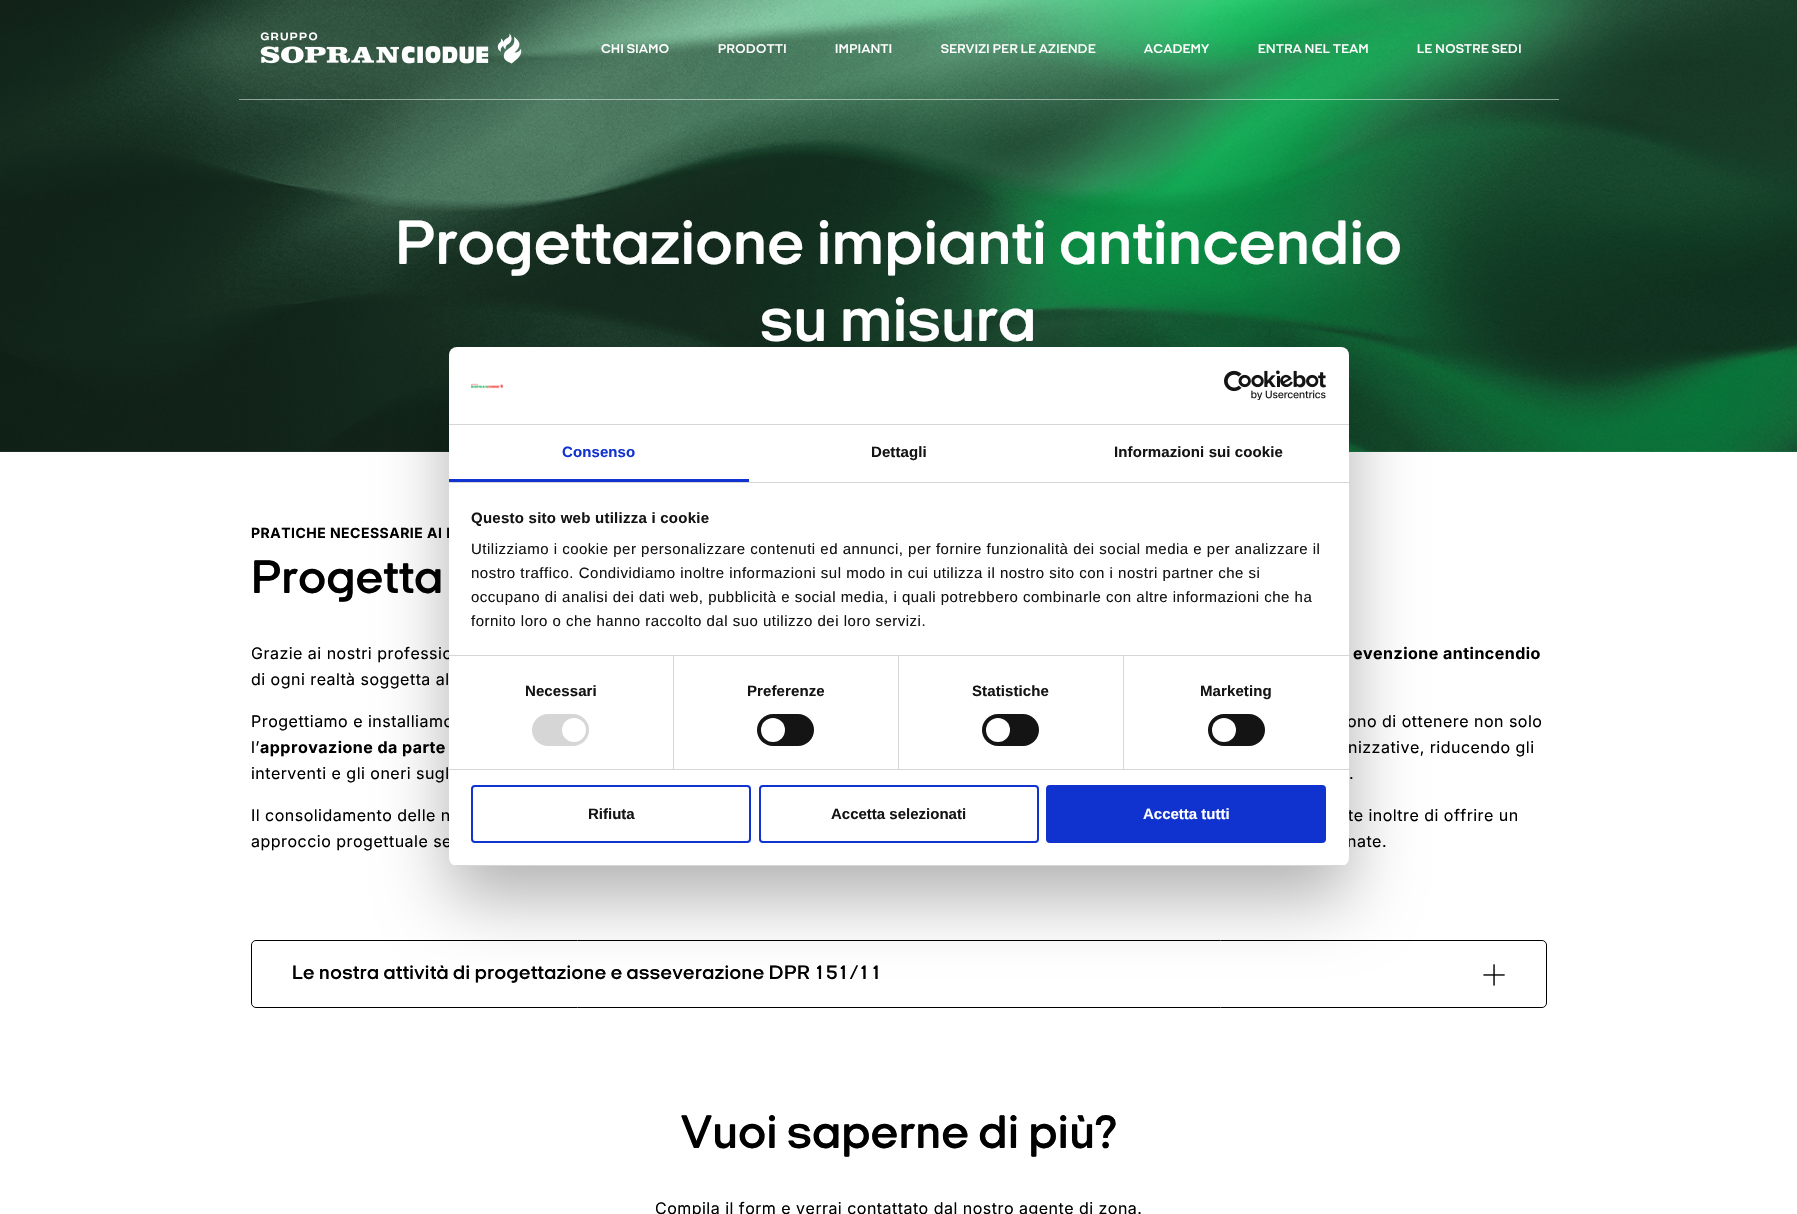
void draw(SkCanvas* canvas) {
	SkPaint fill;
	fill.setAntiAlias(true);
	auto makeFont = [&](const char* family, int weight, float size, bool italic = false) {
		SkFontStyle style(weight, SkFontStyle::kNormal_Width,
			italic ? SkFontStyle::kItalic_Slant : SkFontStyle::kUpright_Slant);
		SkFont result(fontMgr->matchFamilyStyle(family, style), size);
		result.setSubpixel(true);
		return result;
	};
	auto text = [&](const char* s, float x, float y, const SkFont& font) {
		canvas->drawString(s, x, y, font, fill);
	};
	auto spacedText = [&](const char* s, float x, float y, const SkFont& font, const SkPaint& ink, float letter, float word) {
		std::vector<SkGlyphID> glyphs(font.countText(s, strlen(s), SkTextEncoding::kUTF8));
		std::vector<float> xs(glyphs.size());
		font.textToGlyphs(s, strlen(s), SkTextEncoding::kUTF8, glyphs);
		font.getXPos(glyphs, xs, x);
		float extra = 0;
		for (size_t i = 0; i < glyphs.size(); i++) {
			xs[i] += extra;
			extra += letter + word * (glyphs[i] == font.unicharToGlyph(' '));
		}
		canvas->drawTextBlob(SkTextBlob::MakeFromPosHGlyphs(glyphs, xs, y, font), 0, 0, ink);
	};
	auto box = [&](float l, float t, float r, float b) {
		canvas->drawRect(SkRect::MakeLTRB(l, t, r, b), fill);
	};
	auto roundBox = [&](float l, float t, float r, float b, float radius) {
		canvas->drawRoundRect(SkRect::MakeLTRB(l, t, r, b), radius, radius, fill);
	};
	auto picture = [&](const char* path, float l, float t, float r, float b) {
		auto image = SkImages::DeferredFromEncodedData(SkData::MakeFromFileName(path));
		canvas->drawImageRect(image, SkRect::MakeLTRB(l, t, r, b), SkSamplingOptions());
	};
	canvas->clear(0xFFFFFFFF);
	picture("image1.png", 0, 0, 1797, 452);
	picture("image0.png", 260, 32, 522, 64);
	fill.setColor(0x80FFFFFF);
	box(239, 99, 1559, 100);
	fill.setStyle(SkPaint::kStroke_Style);
	fill.setStrokeWidth(1);
	fill.setColor(0xFF000000);
	canvas->drawRoundRect(SkRect::MakeLTRB(251.5f, 940.5f, 1546.5f, 1007.5f), 4.5f, 4.5f, fill);
	picture("image2.png", 1483, 964, 1505, 986);
	fill.setStyle(SkPaint::kFill_Style);
	fill.setColor(0x4D000000);
	fill.setMaskFilter(SkMaskFilter::MakeBlur(kNormal_SkBlurStyle, 34));
	canvas->drawRoundRect(SkRect::MakeLTRB(449, 379, 1349, 898), 8, 8, fill);
	fill.setMaskFilter(nullptr);
	auto font1 = makeFont("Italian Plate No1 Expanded", 600, 13);
	fill.setColor(0xFFFFFFFF);
	spacedText("CHI SIAMO", 601, 53, font1, fill, 0.48f, 0);
	spacedText("PRODOTTI", 718, 53, font1, fill, 0.48f, 0);
	spacedText("IMPIANTI", 835, 53, font1, fill, 0.48f, 0);
	spacedText("SERVIZI PER LE AZIENDE", 941, 53, font1, fill, 0.48f, 0);
	spacedText("ACADEMY", 1144, 53, font1, fill, 0.48f, 0);
	spacedText("ENTRA NEL TEAM", 1258, 53, font1, fill, 0.48f, 0);
	spacedText("LE NOSTRE SEDI", 1417, 53, font1, fill, 0.48f, 0);
	auto font2 = makeFont("Italian Plate No1 Expanded", 600, 64);
	spacedText("Progettazione impianti antincendio", 395, 264, font2, fill, 0.48f, 0);
	spacedText("su misura", 760, 341, font2, fill, 0.48f, 0);
	auto font3 = makeFont("Inter", 700, 14);
	fill.setColor(0xFF000000);
	spacedText("PRATICHE NECESSARIE AI F", 251, 538, font3, fill, 0.48f, 0);
	auto font4 = makeFont("Italian Plate No1 Expanded", 600, 48);
	spacedText("Progetta", 251, 593, font4, fill, 0.48f, 0);
	auto font5 = makeFont("Inter", 400, 16);
	spacedText("Grazie ai nostri professio", 251, 659, font5, fill, 0.48f, 0);
	auto font6 = makeFont("Inter", 700, 16);
	spacedText("evenzione antincendio", 1353, 659, font6, fill, 0.48f, 0);
	spacedText("di ogni realtà soggetta al", 251, 685, font5, fill, 0.48f, 0);
	spacedText("Progettiamo e installiamo", 251, 727, font5, fill, 0.48f, 0);
	spacedText("ono di ottenere non solo", 1347, 727, font5, fill, 0.48f, 0);
	spacedText("l’", 251, 753, font5, fill, 0.48f, 0);
	spacedText("approvazione da parte", 260, 753, font6, fill, 0.48f, 0);
	spacedText("nizzative, riducendo gli", 1348, 753, font5, fill, 0.48f, 0);
	spacedText("interventi e gli oneri sugl", 251, 779, font5, fill, 0.48f, 0);
	spacedText(".", 1349, 779, font5, fill, 0.48f, 0);
	spacedText("Il consolidamento delle n", 251, 821, font5, fill, 0.48f, 0);
	spacedText("te inoltre di offrire un", 1348, 821, font5, fill, 0.48f, 0);
	spacedText("approccio progettuale se", 251, 847, font5, fill, 0.48f, 0);
	spacedText("nate.", 1347, 847, font5, fill, 0.48f, 0);
	auto font7 = makeFont("Italian Plate No1 Expanded", 600, 20);
	spacedText("Le nostra attività di progettazione e asseverazione DPR 151/11", 292, 979, font7, fill, 0.48f, 0);
	spacedText("Vuoi saperne di più?", 681, 1148, font4, fill, 0.48f, 0);
	spacedText("Compila il form e verrai contattato dal nostro agente di zona.", 655, 1214, font5, fill, 0.48f, 0);
	fill.setColor(0xFFFFFFFF);
	roundBox(449, 347, 1349, 866, 8);
	fill.setColor(0xFFD6D6D6);
	box(449, 424, 1349, 425);
	picture("image3.png", 471, 383, 503, 389);
	picture("image4.png", 1224, 370, 1326, 400);
	box(449, 482, 1349, 483);
	fill.setColor(0xFF1032CF);
	box(449, 479, 749, 482);
	auto font8 = makeFont("Liberation Sans", 700, 15);
	spacedText("Consenso", 562, 457, font8, fill, 0.1f, 0);
	fill.setColor(0xFF141414);
	spacedText("Dettagli", 871, 457, font8, fill, 0.1f, 0);
	spacedText("Informazioni sui cookie", 1114, 457, font8, fill, 0.1f, 0);
	fill.setColor(0xFFD6D6D6);
	box(449, 655, 1349, 656);
	fill.setColor(0xFF141414);
	spacedText("Questo sito web utilizza i cookie", 471, 523, font8, fill, 0.25f, 0);
	auto font9 = makeFont("Liberation Sans", 400, 15);
	spacedText("Utilizziamo i cookie per personalizzare contenuti ed annunci, per fornire funzionalità dei social media e per analizzare il", 471, 554, font9, fill, 0.5f, 0);
	spacedText("nostro traffico. Condividiamo inoltre informazioni sul modo in cui utilizza il nostro sito con i nostri partner che si", 471, 578, font9, fill, 0.5f, 0);
	spacedText("occupano di analisi dei dati web, pubblicità e social media, i quali potrebbero combinarle con altre informazioni che ha", 471, 602, font9, fill, 0.5f, 0);
	spacedText("fornito loro o che hanno raccolto dal suo utilizzo dei loro servizi.", 471, 626, font9, fill, 0.5f, 0);
	fill.setColor(0xFFD6D6D6);
	box(449, 769, 1349, 770);
	box(673, 656, 674, 769);
	fill.setColor(0xFF141414);
	spacedText("Necessari", 525, 696, font8, fill, 0.1f, 0);
	fill.setColor(0xFFD6D6D6);
	roundBox(532, 714, 589, 746, 16);
	fill.setColor(0xFFFFFFFF);
	canvas->drawCircle(574, 730, 12, fill);
	fill.setColor(0xFFD6D6D6);
	box(898, 656, 899, 769);
	fill.setColor(0xFF141414);
	spacedText("Preferenze", 747, 696, font8, fill, 0.1f, 0);
	roundBox(757, 714, 814, 746, 16);
	fill.setColor(0xFFFFFFFF);
	canvas->drawCircle(773, 730, 12, fill);
	fill.setColor(0xFFD6D6D6);
	box(1123, 656, 1124, 769);
	fill.setColor(0xFF141414);
	spacedText("Statistiche", 972, 696, font8, fill, 0.1f, 0);
	roundBox(982, 714, 1039, 746, 16);
	fill.setColor(0xFFFFFFFF);
	canvas->drawCircle(998, 730, 12, fill);
	fill.setColor(0xFF141414);
	spacedText("Marketing", 1200, 696, font8, fill, 0.1f, 0);
	roundBox(1208, 714, 1265, 746, 16);
	fill.setColor(0xFFFFFFFF);
	canvas->drawCircle(1224, 730, 12, fill);
	canvas->save();
	canvas->clipPath(SkPathBuilder().moveTo(457, 347).lineTo(1341, 347).cubicTo(1345.5f, 347, 1349, 350.5f, 1349, 355).lineTo(1349, 858).cubicTo(1349, 862.5f, 1345.5f, 866, 1341, 866).lineTo(457, 866).cubicTo(452.5f, 866, 449, 862.5f, 449, 858).lineTo(449, 355).cubicTo(449, 350.5f, 452.5f, 347, 457, 347).close().detach(), true);
	fill.setColor(0xFFD6D6D6);
	box(449, 865, 1349, 866);
	canvas->restore();
	fill.setStyle(SkPaint::kStroke_Style);
	fill.setStrokeWidth(2);
	fill.setColor(0xFF1032CF);
	canvas->drawRoundRect(SkRect::MakeLTRB(472, 786, 750, 842), 3, 3, fill);
	fill.setStyle(SkPaint::kFill_Style);
	fill.setColor(0xFF141414);
	text("Rifiuta", 588, 819, font8);
	fill.setStyle(SkPaint::kStroke_Style);
	fill.setColor(0xFF1032CF);
	canvas->drawRoundRect(SkRect::MakeLTRB(760, 786, 1038, 842), 3, 3, fill);
	fill.setStyle(SkPaint::kFill_Style);
	fill.setColor(0xFF141414);
	text("Accetta selezionati", 831, 819, font8);
	fill.setColor(0xFF1032CF);
	canvas->drawRoundRect(SkRect::MakeLTRB(1047, 786, 1325, 842), 3, 3, fill);
	fill.setStyle(SkPaint::kStroke_Style);
	canvas->drawRoundRect(SkRect::MakeLTRB(1047, 786, 1325, 842), 3, 3, fill);
	fill.setStyle(SkPaint::kFill_Style);
	fill.setColor(0xFFFFFFFF);
	text("Accetta tutti", 1143, 819, font8);
}
